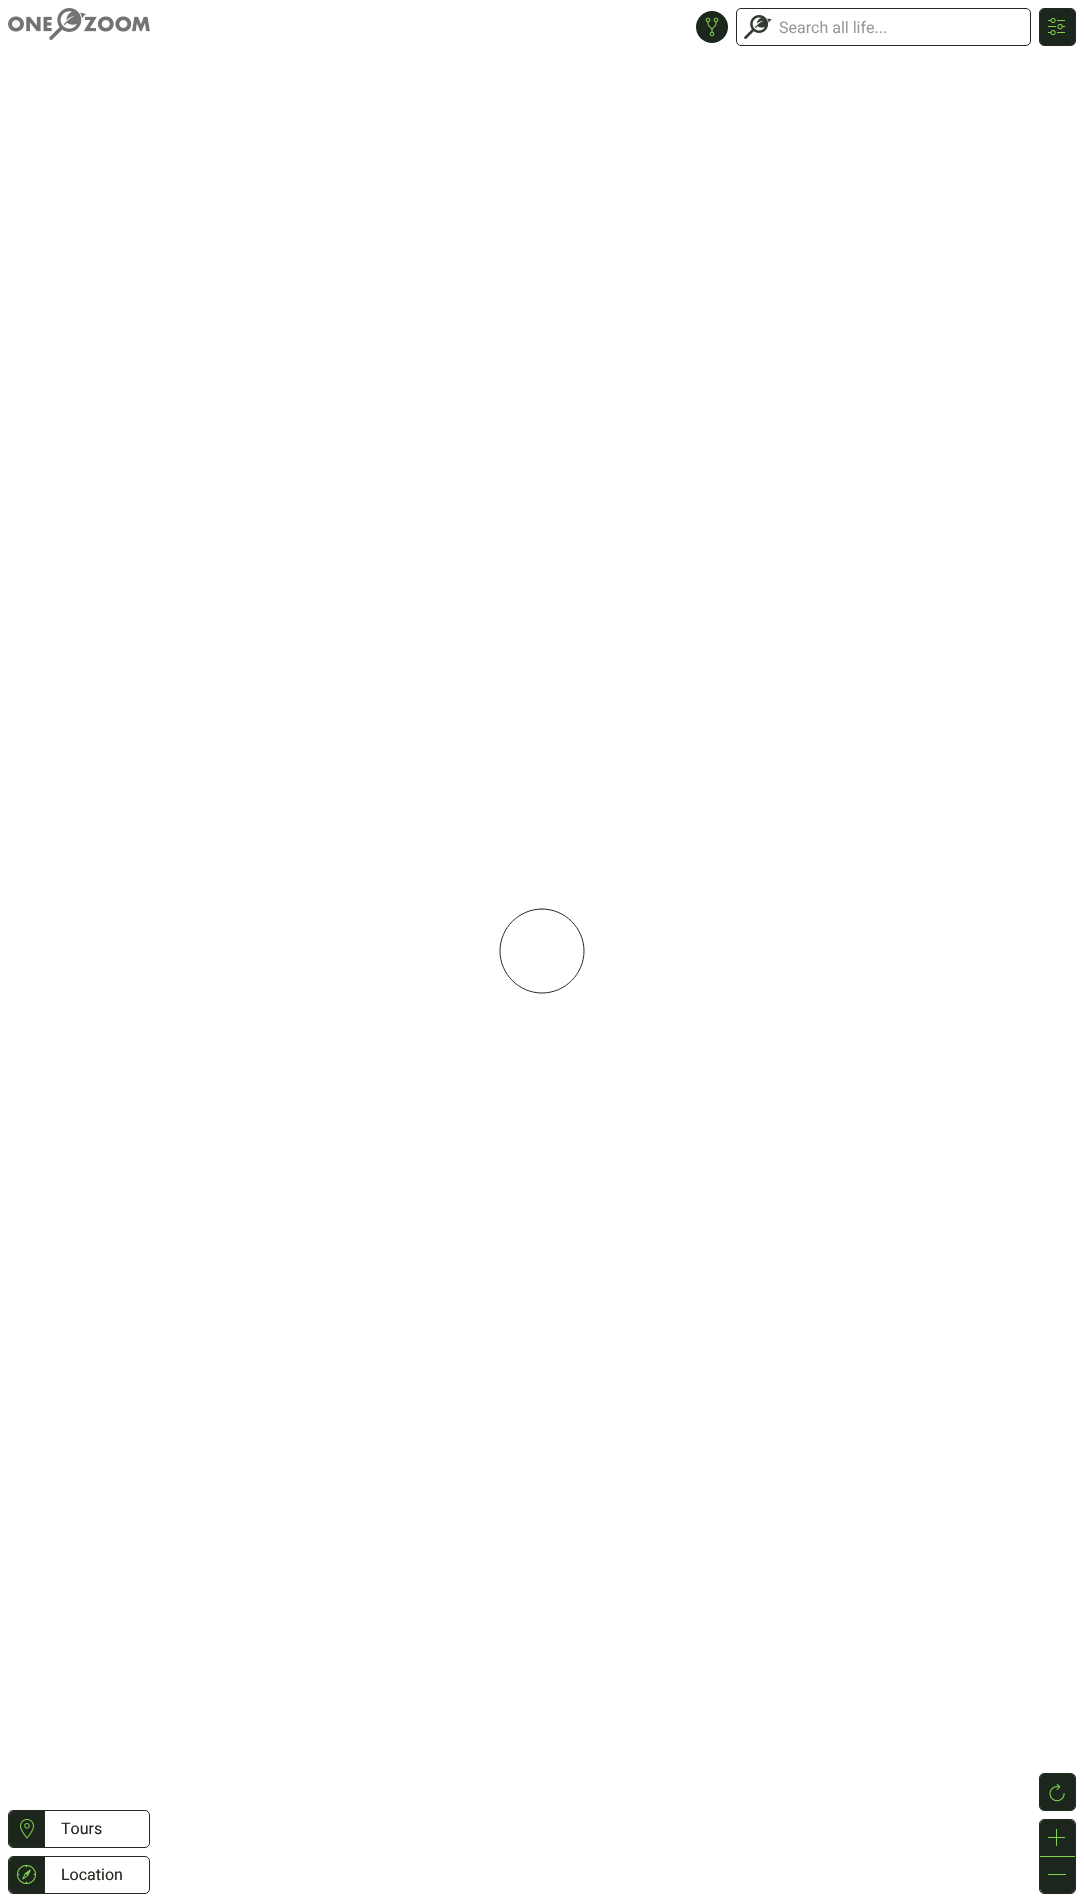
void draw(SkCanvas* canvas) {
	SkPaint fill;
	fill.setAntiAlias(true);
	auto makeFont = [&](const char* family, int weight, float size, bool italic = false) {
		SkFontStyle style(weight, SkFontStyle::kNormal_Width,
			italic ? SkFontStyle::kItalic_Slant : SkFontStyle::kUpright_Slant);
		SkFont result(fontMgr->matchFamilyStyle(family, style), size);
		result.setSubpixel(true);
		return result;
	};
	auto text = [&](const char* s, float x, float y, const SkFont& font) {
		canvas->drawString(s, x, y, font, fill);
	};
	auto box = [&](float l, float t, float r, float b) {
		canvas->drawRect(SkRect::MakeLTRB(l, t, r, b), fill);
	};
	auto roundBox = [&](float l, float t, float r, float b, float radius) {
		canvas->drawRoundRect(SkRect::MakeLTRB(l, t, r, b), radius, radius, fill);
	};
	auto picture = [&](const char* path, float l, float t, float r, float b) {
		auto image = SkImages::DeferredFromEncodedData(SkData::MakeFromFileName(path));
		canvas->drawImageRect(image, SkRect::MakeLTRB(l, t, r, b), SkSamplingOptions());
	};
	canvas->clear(0xFFFFFFFF);
	picture("image0.png", 8, 8, 150, 40);
	fill.setColor(0xFF1C261C);
	canvas->drawCircle(712, 27, 16, fill);
	picture("image1.png", 705, 17, 719, 37);
	fill.setStyle(SkPaint::kStroke_Style);
	fill.setStrokeWidth(1);
	fill.setColor(0xFF242A22);
	canvas->drawRoundRect(SkRect::MakeLTRB(736.5f, 8.5f, 1030.5f, 45.5f), 4.5f, 4.5f, fill);
	picture("image2.png", 744, 15, 772, 39);
	canvas->drawRoundRect(SkRect::MakeLTRB(1039.5f, 8.5f, 1075.5f, 45.5f), 4.5f, 4.5f, fill);
	fill.setStyle(SkPaint::kFill_Style);
	fill.setColor(0xFF1C261C);
	roundBox(1040, 9, 1075, 45, 4);
	picture("image3.png", 1048, 17, 1065, 36);
	fill.setStyle(SkPaint::kStroke_Style);
	fill.setStrokeCap(SkPaint::kRound_Cap);
	fill.setColor(0xFF242A22);
	canvas->drawPath(SkPathBuilder().moveTo(542, 909).cubicTo(565, 909, 584, 928, 584, 951).cubicTo(584, 974, 565, 993, 542, 993).cubicTo(519, 993, 500, 974, 500, 951).cubicTo(500, 928, 519, 909, 542, 909).detach(), fill);
	fill.setStrokeCap(SkPaint::kButt_Cap);
	canvas->drawRoundRect(SkRect::MakeLTRB(8.5f, 1810.5f, 149.5f, 1847.5f), 4.5f, 4.5f, fill);
	fill.setStyle(SkPaint::kFill_Style);
	fill.setColor(0xFF1C261C);
	canvas->drawPath(SkPathBuilder().moveTo(13, 1811).lineTo(45, 1811).lineTo(45, 1847).lineTo(13, 1847).cubicTo(11, 1847, 9, 1845, 9, 1843).lineTo(9, 1815).cubicTo(9, 1813, 11, 1811, 13, 1811).close().detach(), fill);
	fill.setColor(0xFF242A22);
	box(44, 1811, 45, 1847);
	picture("image4.png", 20, 1819, 34, 1839);
	fill.setStyle(SkPaint::kStroke_Style);
	canvas->drawRoundRect(SkRect::MakeLTRB(8.5f, 1856.5f, 149.5f, 1893.5f), 4.5f, 4.5f, fill);
	fill.setStyle(SkPaint::kFill_Style);
	fill.setColor(0xFF1C261C);
	canvas->drawPath(SkPathBuilder().moveTo(13, 1857).lineTo(45, 1857).lineTo(45, 1893).lineTo(13, 1893).cubicTo(11, 1893, 9, 1891, 9, 1889).lineTo(9, 1861).cubicTo(9, 1859, 11, 1857, 13, 1857).close().detach(), fill);
	fill.setColor(0xFF242A22);
	box(44, 1857, 45, 1893);
	picture("image5.png", 17, 1865, 37, 1885);
	fill.setStyle(SkPaint::kStroke_Style);
	canvas->drawRoundRect(SkRect::MakeLTRB(1039.5f, 1773.5f, 1075.5f, 1810.5f), 4.5f, 4.5f, fill);
	fill.setStyle(SkPaint::kFill_Style);
	fill.setColor(0xFF1C261C);
	roundBox(1040, 1774, 1075, 1810, 4);
	picture("image6.png", 1049, 1783, 1065, 1802);
	fill.setStyle(SkPaint::kStroke_Style);
	fill.setColor(0xFF242A22);
	canvas->drawRoundRect(SkRect::MakeLTRB(1039.5f, 1819.5f, 1075.5f, 1893.5f), 4.5f, 4.5f, fill);
	fill.setStyle(SkPaint::kFill_Style);
	fill.setColor(0xFF1C261C);
	canvas->drawPath(SkPathBuilder().moveTo(1044, 1820).lineTo(1071, 1820).cubicTo(1073, 1820, 1075, 1822, 1075, 1824).lineTo(1075, 1856).lineTo(1040, 1856).lineTo(1040, 1824).cubicTo(1040, 1822, 1042, 1820, 1044, 1820).close().detach(), fill);
	fill.setColor(0xFF7FD14F);
	box(1056, 1829, 1057, 1846);
	box(1048, 1837, 1065, 1838);
	fill.setColor(0xFF1C261C);
	canvas->drawPath(SkPathBuilder().moveTo(1040, 1856).lineTo(1075, 1856).lineTo(1075, 1889).cubicTo(1075, 1891, 1073, 1893, 1071, 1893).lineTo(1044, 1893).cubicTo(1042, 1893, 1040, 1891, 1040, 1889).close().detach(), fill);
	fill.setColor(0xFF7FD14F);
	box(1040, 1856, 1075, 1857);
	box(1048, 1874, 1066, 1875);
	auto font1 = makeFont("Roboto", 400, 16);
	fill.setColor(0xFF999999);
	text("Search all life...", 779, 33, font1);
	fill.setColor(0xFF242A22);
	text("Tours", 61, 1834, font1);
	text("Location", 61, 1880, font1);
}
